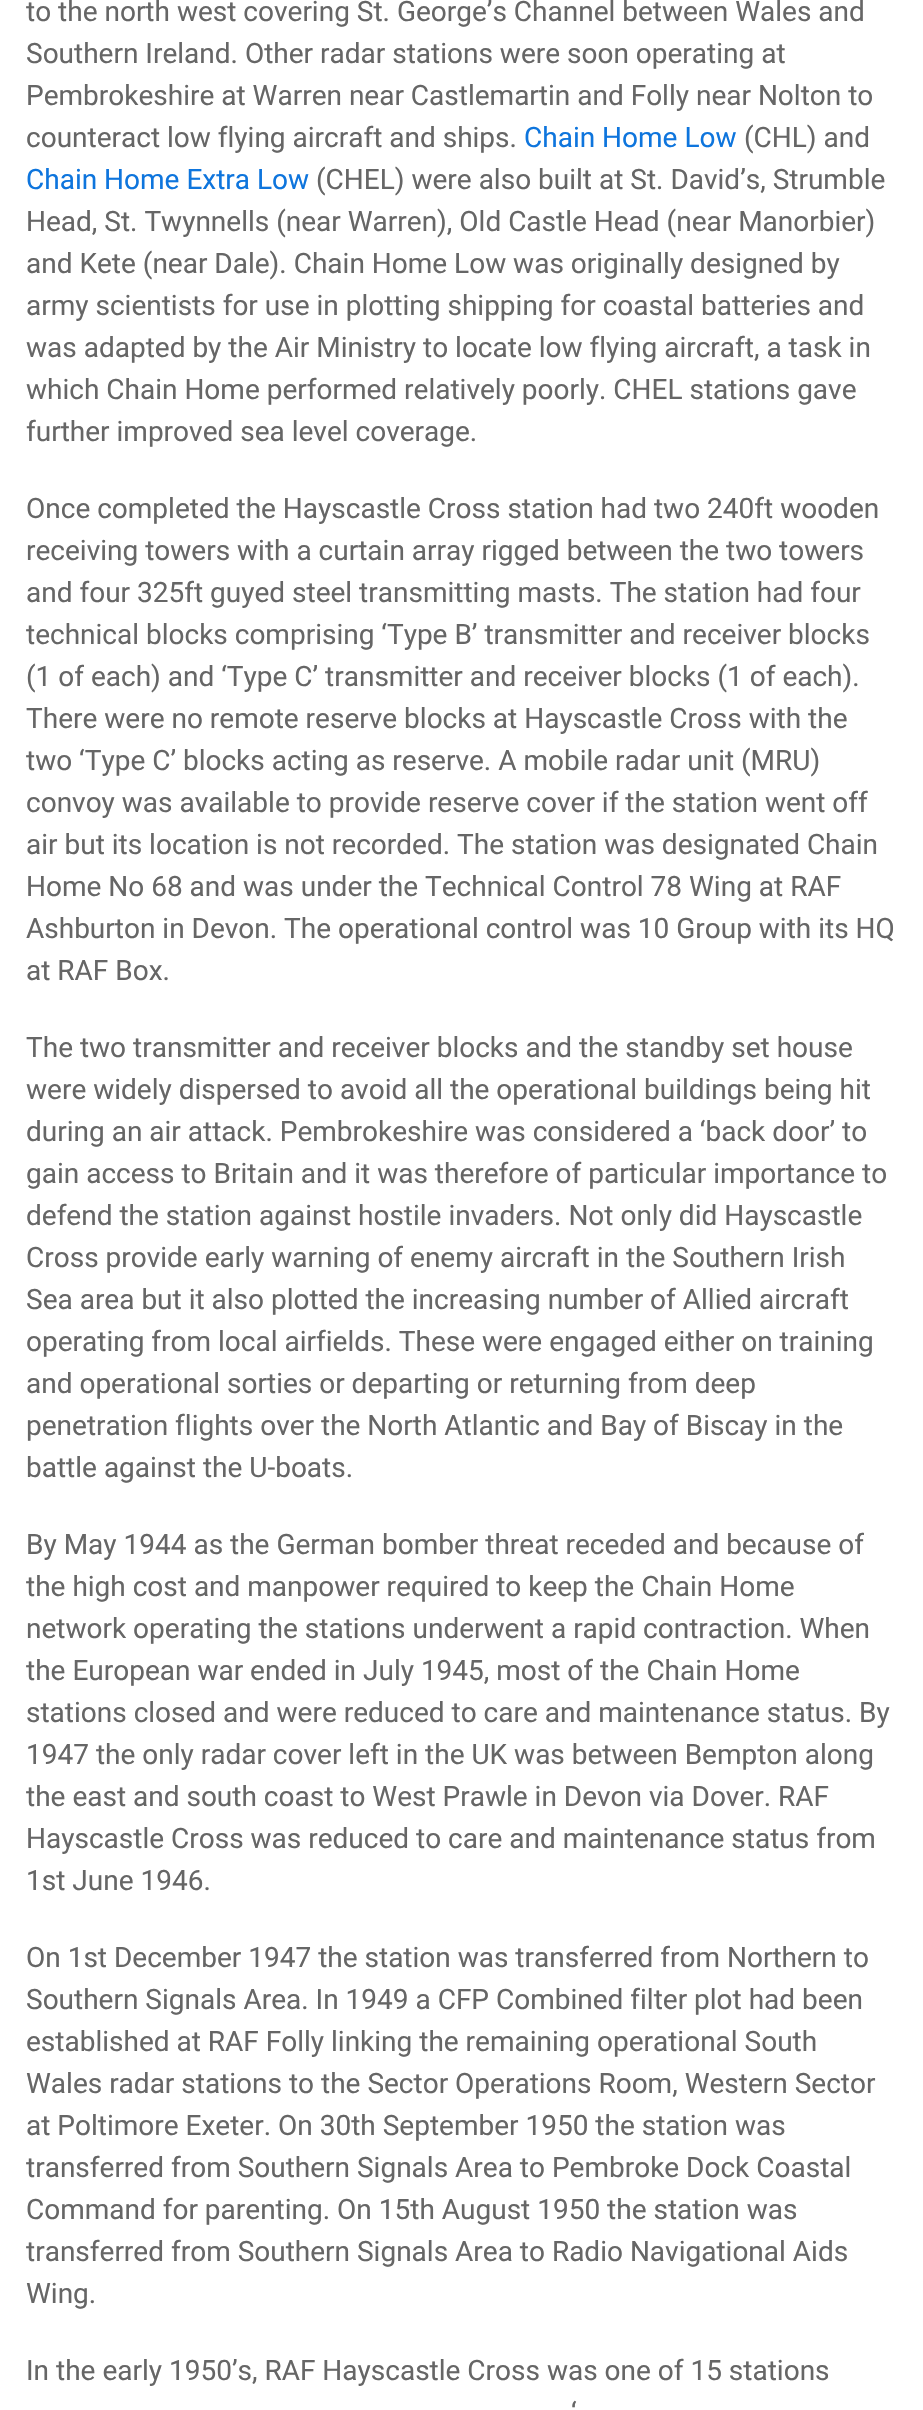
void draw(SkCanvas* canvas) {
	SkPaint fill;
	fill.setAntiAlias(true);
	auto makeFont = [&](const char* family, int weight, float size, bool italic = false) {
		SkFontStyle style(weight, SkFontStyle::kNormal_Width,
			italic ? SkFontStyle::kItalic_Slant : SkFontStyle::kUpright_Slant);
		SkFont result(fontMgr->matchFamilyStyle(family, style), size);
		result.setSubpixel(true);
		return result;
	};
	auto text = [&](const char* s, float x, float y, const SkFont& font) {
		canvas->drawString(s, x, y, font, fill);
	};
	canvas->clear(0xFFFFFFFF);
	auto font1 = makeFont("Roboto", 400, 28);
	fill.setColor(0xFF666666);
	text("to the north west covering St. George’s Channel between Wales and", 26, 21, font1);
	text("Southern Ireland. Other radar stations were soon operating at", 26, 63, font1);
	text("Pembrokeshire at Warren near Castlemartin and Folly near Nolton to", 26, 105, font1);
	text("counteract low flying aircraft and ships.", 26, 147, font1);
	fill.setColor(0xFF0E75DD);
	text("Chain Home Low", 524, 147, font1);
	fill.setColor(0xFF666666);
	text("(CHL) and", 744, 147, font1);
	fill.setColor(0xFF0E75DD);
	text("Chain Home Extra Low", 26, 189, font1);
	fill.setColor(0xFF666666);
	text("(CHEL) were also built at St. David’s, Strumble", 316, 189, font1);
	text("Head, St. Twynnells (near Warren), Old Castle Head (near Manorbier)", 26, 231, font1);
	text("and Kete (near Dale). Chain Home Low was originally designed by", 26, 273, font1);
	text("army scientists for use in plotting shipping for coastal batteries and", 26, 315, font1);
	text("was adapted by the Air Ministry to locate low flying aircraft, a task in", 26, 357, font1);
	text("which Chain Home performed relatively poorly. CHEL stations gave", 26, 399, font1);
	text("further improved sea level coverage.", 26, 441, font1);
	text("Once completed the Hayscastle Cross station had two 240ft wooden", 26, 518, font1);
	text("receiving towers with a curtain array rigged between the two towers", 26, 560, font1);
	text("and four 325ft guyed steel transmitting masts. The station had four", 26, 602, font1);
	text("technical blocks comprising ‘Type B’ transmitter and receiver blocks", 26, 644, font1);
	text("(1 of each) and ‘Type C’ transmitter and receiver blocks (1 of each).", 26, 686, font1);
	text("There were no remote reserve blocks at Hayscastle Cross with the", 26, 728, font1);
	text("two ‘Type C’ blocks acting as reserve. A mobile radar unit (MRU)", 26, 770, font1);
	text("convoy was available to provide reserve cover if the station went off", 26, 812, font1);
	text("air but its location is not recorded. The station was designated Chain", 26, 854, font1);
	text("Home No 68 and was under the Technical Control 78 Wing at RAF", 26, 896, font1);
	text("Ashburton in Devon. The operational control was 10 Group with its HQ", 26, 938, font1);
	text("at RAF Box.", 26, 980, font1);
	text("The two transmitter and receiver blocks and the standby set house", 26, 1057, font1);
	text("were widely dispersed to avoid all the operational buildings being hit", 26, 1099, font1);
	text("during an air attack. Pembrokeshire was considered a ‘back door’ to", 26, 1141, font1);
	text("gain access to Britain and it was therefore of particular importance to", 26, 1183, font1);
	text("defend the station against hostile invaders. Not only did Hayscastle", 26, 1225, font1);
	text("Cross provide early warning of enemy aircraft in the Southern Irish", 26, 1267, font1);
	text("Sea area but it also plotted the increasing number of Allied aircraft", 26, 1309, font1);
	text("operating from local airfields. These were engaged either on training", 26, 1351, font1);
	text("and operational sorties or departing or returning from deep", 26, 1393, font1);
	text("penetration flights over the North Atlantic and Bay of Biscay in the", 26, 1435, font1);
	text("battle against the U-boats.", 26, 1477, font1);
	text("By May 1944 as the German bomber threat receded and because of", 26, 1554, font1);
	text("the high cost and manpower required to keep the Chain Home", 26, 1596, font1);
	text("network operating the stations underwent a rapid contraction. When", 26, 1638, font1);
	text("the European war ended in July 1945, most of the Chain Home", 26, 1680, font1);
	text("stations closed and were reduced to care and maintenance status. By", 26, 1722, font1);
	text("1947 the only radar cover left in the UK was between Bempton along", 26, 1764, font1);
	text("the east and south coast to West Prawle in Devon via Dover. RAF", 26, 1806, font1);
	text("Hayscastle Cross was reduced to care and maintenance status from", 26, 1848, font1);
	text("1st June 1946.", 26, 1890, font1);
	text("On 1st December 1947 the station was transferred from Northern to", 26, 1967, font1);
	text("Southern Signals Area. In 1949 a CFP Combined filter plot had been", 26, 2009, font1);
	text("established at RAF Folly linking the remaining operational South", 26, 2051, font1);
	text("Wales radar stations to the Sector Operations Room, Western Sector", 26, 2093, font1);
	text("at Poltimore Exeter. On 30th September 1950 the station was", 26, 2135, font1);
	text("transferred from Southern Signals Area to Pembroke Dock Coastal", 26, 2177, font1);
	text("Command for parenting. On 15th August 1950 the station was", 26, 2219, font1);
	text("transferred from Southern Signals Area to Radio Navigational Aids", 26, 2261, font1);
	text("Wing.", 26, 2303, font1);
	text("In the early 1950’s, RAF Hayscastle Cross was one of 15 stations", 26, 2380, font1);
	text("‘", 571, 2422, font1);
}
